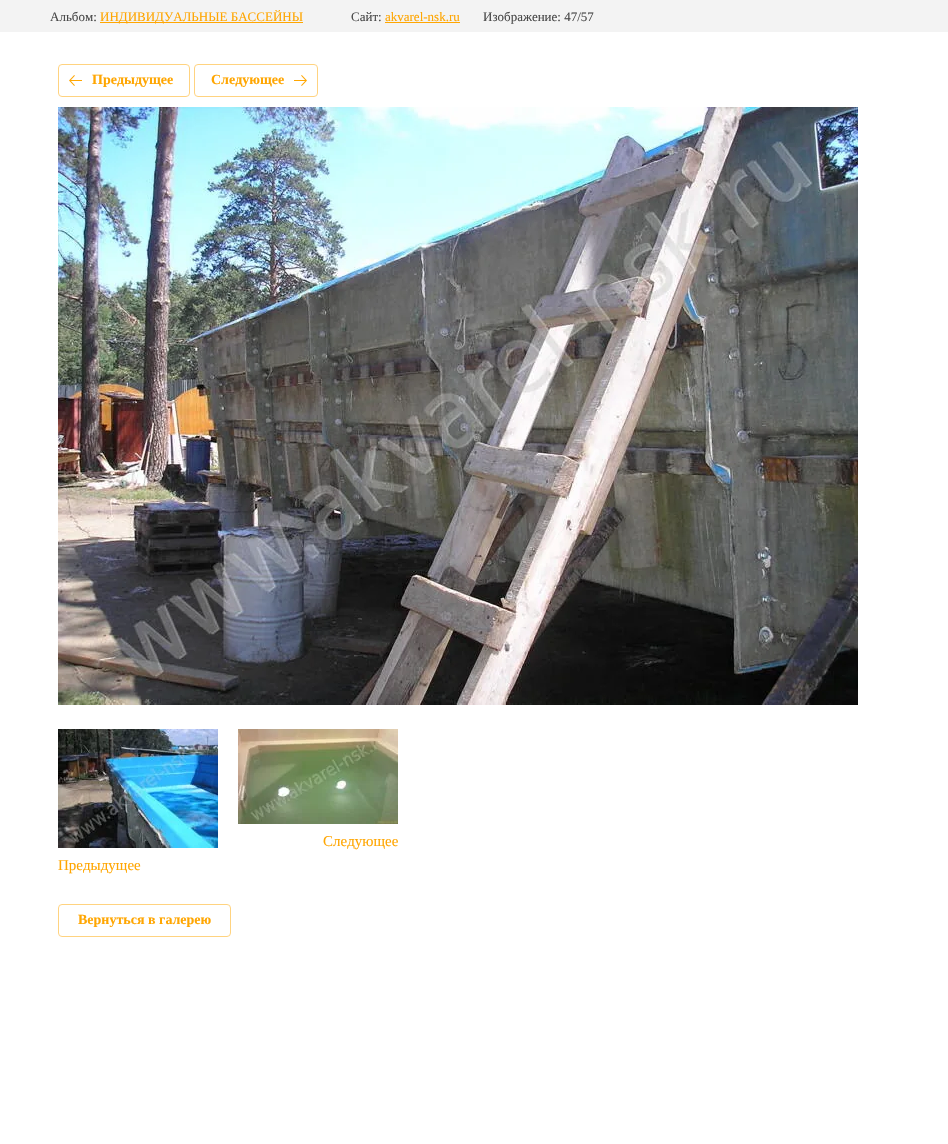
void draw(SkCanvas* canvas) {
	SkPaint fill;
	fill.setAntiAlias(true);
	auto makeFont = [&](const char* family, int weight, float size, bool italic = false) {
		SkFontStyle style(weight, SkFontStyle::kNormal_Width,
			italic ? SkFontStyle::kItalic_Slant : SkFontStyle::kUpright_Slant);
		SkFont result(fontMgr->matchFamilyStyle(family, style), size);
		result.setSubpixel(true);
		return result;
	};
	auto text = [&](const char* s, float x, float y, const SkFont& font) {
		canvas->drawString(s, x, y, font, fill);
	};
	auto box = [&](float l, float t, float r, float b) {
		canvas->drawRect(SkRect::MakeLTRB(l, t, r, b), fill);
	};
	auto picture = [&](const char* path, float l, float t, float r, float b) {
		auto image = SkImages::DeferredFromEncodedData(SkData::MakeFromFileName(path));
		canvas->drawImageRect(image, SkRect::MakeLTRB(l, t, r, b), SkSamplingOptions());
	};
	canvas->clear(0xFFFFFFFF);
	fill.setColor(0xFFF3F3F3);
	box(0, 0, 948, 32);
	fill.setColor(0xFFFFA601);
	box(100, 22, 303, 23);
	box(385, 22, 460, 23);
	fill.setStyle(SkPaint::kStroke_Style);
	fill.setStrokeWidth(1);
	fill.setColor(0xFFFFD380);
	canvas->drawRoundRect(SkRect::MakeLTRB(58.5f, 64.5f, 189.5f, 96.5f), 3.5f, 3.5f, fill);
	picture("image0.png", 69, 75, 82, 86);
	canvas->drawRoundRect(SkRect::MakeLTRB(194.5f, 64.5f, 317.5f, 96.5f), 3.5f, 3.5f, fill);
	picture("image1.png", 294, 75, 307, 86);
	picture("image2.png", 58, 107, 858, 705);
	picture("image3.png", 238, 729, 398, 824);
	picture("image4.png", 58, 729, 218, 848);
	canvas->drawRoundRect(SkRect::MakeLTRB(58.5f, 904.5f, 230.5f, 936.5f), 3.5f, 3.5f, fill);
	auto font1 = makeFont("Liberation Serif", 400, 13);
	fill.setStyle(SkPaint::kFill_Style);
	fill.setColor(0xFF484848);
	text("Альбом:", 50, 21, font1);
	fill.setColor(0xFFFFA601);
	text("ИНДИВИДУАЛЬНЫЕ БАССЕЙНЫ", 100, 21, font1);
	fill.setColor(0xFF484848);
	text("Сайт:", 351, 21, font1);
	fill.setColor(0xFFFFA601);
	text("akvarel-nsk.ru", 385, 21, font1);
	fill.setColor(0xFF484848);
	text("Изображение: 47/57", 483, 21, font1);
	auto font2 = makeFont("Liberation Serif", 700, 14);
	fill.setColor(0xFFFFA601);
	text("Предыдущее", 92, 84, font2);
	text("Следующее", 211, 84, font2);
	auto font3 = makeFont("Liberation Serif", 400, 15);
	text("Следующее", 323, 846, font3);
	text("Предыдущее", 58, 870, font3);
	text("Вернуться в галерею", 78, 924, font2);
}
